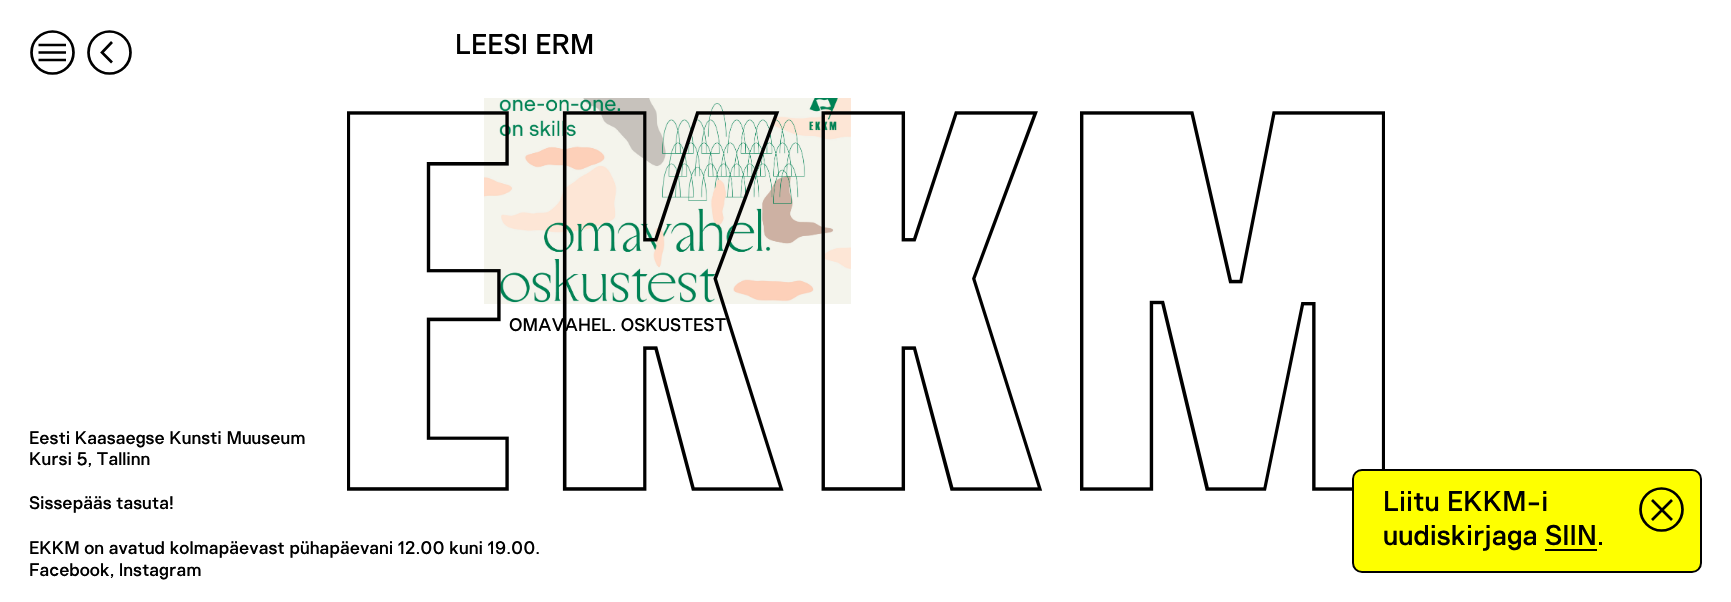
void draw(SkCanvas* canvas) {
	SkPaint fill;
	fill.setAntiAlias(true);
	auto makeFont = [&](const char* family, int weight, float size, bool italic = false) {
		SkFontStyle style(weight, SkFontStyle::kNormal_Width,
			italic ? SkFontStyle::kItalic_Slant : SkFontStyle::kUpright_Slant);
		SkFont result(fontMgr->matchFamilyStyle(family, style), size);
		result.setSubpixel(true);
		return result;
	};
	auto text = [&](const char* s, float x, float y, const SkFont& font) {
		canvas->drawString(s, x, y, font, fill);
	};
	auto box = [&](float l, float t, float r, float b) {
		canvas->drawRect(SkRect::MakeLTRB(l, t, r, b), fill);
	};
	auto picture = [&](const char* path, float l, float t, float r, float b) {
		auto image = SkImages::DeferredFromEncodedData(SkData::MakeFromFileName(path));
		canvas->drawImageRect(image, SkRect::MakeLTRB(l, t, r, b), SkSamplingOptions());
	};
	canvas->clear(0xFFFFFFFF);
	fill.setStyle(SkPaint::kStroke_Style);
	fill.setStrokeWidth(2.7f);
	fill.setColor(0xFF000000);
	canvas->drawCircle(52.5f, 52.5f, 21, fill);
	canvas->drawPath(SkPathBuilder().moveTo(66, 52.5f).lineTo(38.5f, 52.5f).moveTo(66, 45).lineTo(38.5f, 45).moveTo(66, 60).lineTo(38.5f, 60).detach(), fill);
	canvas->drawCircle(109.5f, 52.5f, 21, fill);
	canvas->drawPath(SkPathBuilder().moveTo(112, 42).lineTo(102, 52.5f).lineTo(112, 62.5f).detach(), fill);
	picture("image0.png", 484, 98, 851, 304);
	auto font1 = makeFont("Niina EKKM", 400, 28.5f);
	fill.setStyle(SkPaint::kFill_Style);
	text("LEESI ERM", 455, 54, font1);
	auto font2 = makeFont("Niina EKKM", 400, 18.2f);
	text("OMAVAHEL. OSKUSTEST", 509, 331, font2);
	text("Eesti Kaasaegse Kunsti Muuseum", 29, 444, font2);
	text("Kursi 5, Tallinn", 29, 465, font2);
	text("Sissepääs tasuta!", 29, 509, font2);
	text("EKKM on avatud kolmapäevast pühapäevani 12.00 kuni 19.00.", 29, 554, font2);
	text("Facebook, Instagram", 29, 576, font2);
	picture("image1.png", 347, 111, 1385, 491);
	fill.setColor(0xFFFEFF00);
	canvas->drawRoundRect(SkRect::MakeLTRB(1353, 470, 1701, 572), 9, 9, fill);
	fill.setStyle(SkPaint::kStroke_Style);
	fill.setStrokeWidth(2);
	fill.setColor(0xFF000000);
	canvas->drawRoundRect(SkRect::MakeLTRB(1353, 470, 1701, 572), 9, 9, fill);
	fill.setStyle(SkPaint::kFill_Style);
	text("Liitu EKKM-i", 1383, 511, font1);
	text("uudiskirjaga SIIN.", 1383, 545, font1);
	box(1545, 549, 1597, 551);
	fill.setStyle(SkPaint::kStroke_Style);
	fill.setStrokeWidth(2.7f);
	canvas->drawCircle(1661.5f, 509.5f, 21, fill);
	canvas->drawPath(SkPathBuilder().moveTo(1652, 500).lineTo(1672, 520).moveTo(1672, 500).lineTo(1652, 520).detach(), fill);
}
